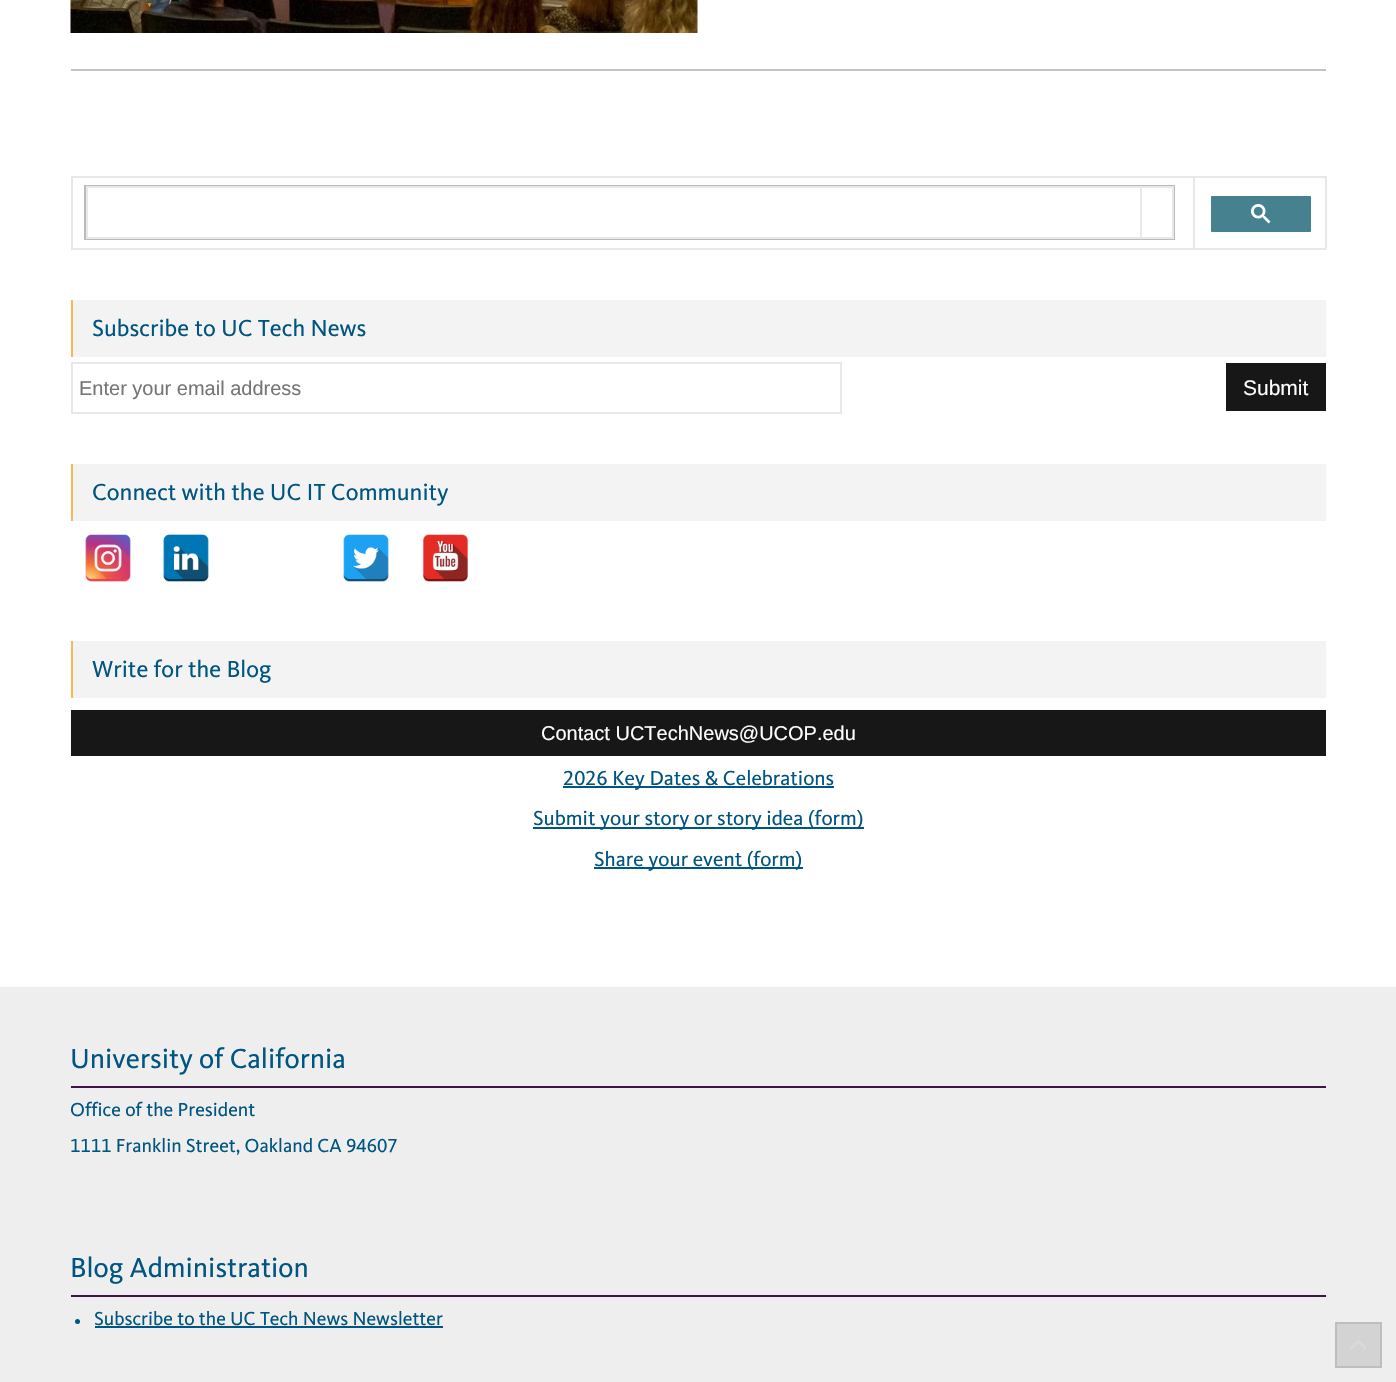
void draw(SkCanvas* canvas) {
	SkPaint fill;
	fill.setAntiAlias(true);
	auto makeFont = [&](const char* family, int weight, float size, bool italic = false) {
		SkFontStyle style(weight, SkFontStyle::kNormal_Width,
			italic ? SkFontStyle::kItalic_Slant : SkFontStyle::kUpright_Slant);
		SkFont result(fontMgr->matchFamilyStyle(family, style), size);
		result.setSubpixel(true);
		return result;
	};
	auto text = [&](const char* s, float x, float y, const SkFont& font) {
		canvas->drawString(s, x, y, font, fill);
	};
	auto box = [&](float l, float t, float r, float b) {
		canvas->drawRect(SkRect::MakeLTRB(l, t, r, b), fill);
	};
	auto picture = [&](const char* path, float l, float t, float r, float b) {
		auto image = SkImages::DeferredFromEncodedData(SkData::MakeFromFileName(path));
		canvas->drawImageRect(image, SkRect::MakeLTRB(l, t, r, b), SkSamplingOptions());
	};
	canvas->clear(0xFFFFFFFF);
	fill.setColor(0xFFC3C3C3);
	box(71, 69, 1326, 71);
	picture("image0.png", 70, 0, 698, 33);
	fill.setColor(0xFFE8E8E8);
	box(1193, 176, 1326, 178);
	box(1325, 176, 1327, 249);
	box(1193, 248, 1326, 250);
	box(1193, 176, 1195, 249);
	box(71, 176, 1194, 178);
	box(71, 248, 1194, 250);
	box(71, 176, 73, 249);
	fill.setStyle(SkPaint::kStroke_Style);
	fill.setStrokeWidth(2);
	fill.setColor(0xFFBBBBBB);
	canvas->drawRect(SkRect::MakeLTRB(85, 186, 1174, 239), fill);
	fill.setStyle(SkPaint::kFill_Style);
	fill.setColor(0xFFE8E8E8);
	box(86, 186, 1173, 188);
	box(1172, 186, 1174, 239);
	box(86, 237, 1173, 239);
	box(86, 186, 88, 239);
	box(1140, 186, 1142, 239);
	fill.setColor(0xFF45818E);
	canvas->drawRoundRect(SkRect::MakeLTRB(1210, 195, 1312, 233), 2, 2, fill);
	fill.setStyle(SkPaint::kStroke_Style);
	fill.setColor(0xFFFFFFFF);
	canvas->drawRoundRect(SkRect::MakeLTRB(1210, 195, 1312, 233), 2, 2, fill);
	picture("image1.png", 1251, 204, 1271, 224);
	fill.setStyle(SkPaint::kFill_Style);
	fill.setColor(0xFFF3F3F4);
	box(73, 300, 1326, 357);
	fill.setColor(0xFFFFB551);
	box(71, 300, 73, 357);
	fill.setStyle(SkPaint::kStroke_Style);
	fill.setColor(0xFFE8E8E8);
	canvas->drawRect(SkRect::MakeLTRB(72, 363, 841, 413), fill);
	fill.setStyle(SkPaint::kFill_Style);
	fill.setColor(0xFF171717);
	box(1226, 363, 1326, 411);
	fill.setColor(0xFFF3F3F4);
	box(73, 464, 1326, 521);
	fill.setColor(0xFFFFB551);
	box(71, 464, 73, 521);
	picture("image2.png", 85, 534, 131, 582);
	picture("image3.png", 163, 534, 209, 582);
	picture("image4.png", 343, 534, 389, 582);
	picture("image5.png", 423, 534, 468, 582);
	fill.setColor(0xFFF3F3F4);
	box(73, 641, 1326, 698);
	fill.setColor(0xFFFFB551);
	box(71, 641, 73, 698);
	fill.setColor(0xFF171717);
	box(71, 710, 1326, 756);
	fill.setColor(0xFF005581);
	box(563, 786, 834, 788);
	box(533, 827, 864, 829);
	box(594, 867, 803, 869);
	fill.setColor(0xFFEEEEEE);
	box(0, 987, 1396, 1382);
	fill.setColor(0xFF411447);
	box(71, 1086, 1326, 1088);
	box(71, 1295, 1326, 1297);
	fill.setColor(0xFF005581);
	canvas->drawCircle(77.5f, 1321.5f, 2.5f, fill);
	box(95, 1326, 443, 1328);
	fill.setColor(0xFFD3D3D3);
	box(1337, 1324, 1380, 1366);
	picture("image6.png", 1350, 1340, 1366, 1350);
	fill.setStyle(SkPaint::kStroke_Style);
	fill.setColor(0xFFBEBEBE);
	canvas->drawRect(SkRect::MakeLTRB(1336, 1323, 1381, 1367), fill);
	auto font1 = makeFont("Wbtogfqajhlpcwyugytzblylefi", 400, 24);
	fill.setStyle(SkPaint::kFill_Style);
	fill.setColor(0xFF005581);
	text("Subscribe to UC Tech News", 92, 336, font1);
	auto font2 = makeFont("Liberation Sans", 400, 20);
	fill.setColor(0xFF757575);
	text("Enter your email address", 79, 395, font2);
	auto font3 = makeFont("Liberation Sans", 400, 21);
	fill.setColor(0xFFFFFFFF);
	text("Submit", 1243, 395, font3);
	fill.setColor(0xFF005581);
	text("Connect with the UC IT Community", 92, 500, font1);
	text("Write for the Blog", 92, 677, font1);
	fill.setColor(0xFFFFFFFF);
	text("Contact UCTechNews@UCOP.edu", 541, 740, font2);
	auto font4 = makeFont("Wbtogfqajhlpcwyugytzblylefi", 400, 21);
	fill.setColor(0xFF005581);
	text("2026 Key Dates & Celebrations", 563, 785, font4);
	text("Submit your story or story idea (form)", 533, 825, font4);
	text("Share your event (form)", 594, 866, font4);
	auto font5 = makeFont("Wbtogfqajhlpcwyugytzblylefi", 400, 28.5f);
	text("University of California", 70, 1068, font5);
	auto font6 = makeFont("Wbtogfqajhlpcwyugytzblylefi", 400, 19.5f);
	text("Office of the President", 70, 1116, font6);
	text("1111 Franklin Street, Oakland CA 94607", 70, 1152, font6);
	text("Blog Administration", 70, 1277, font5);
	text("Subscribe to the UC Tech News Newsletter", 94, 1325, font6);
}
